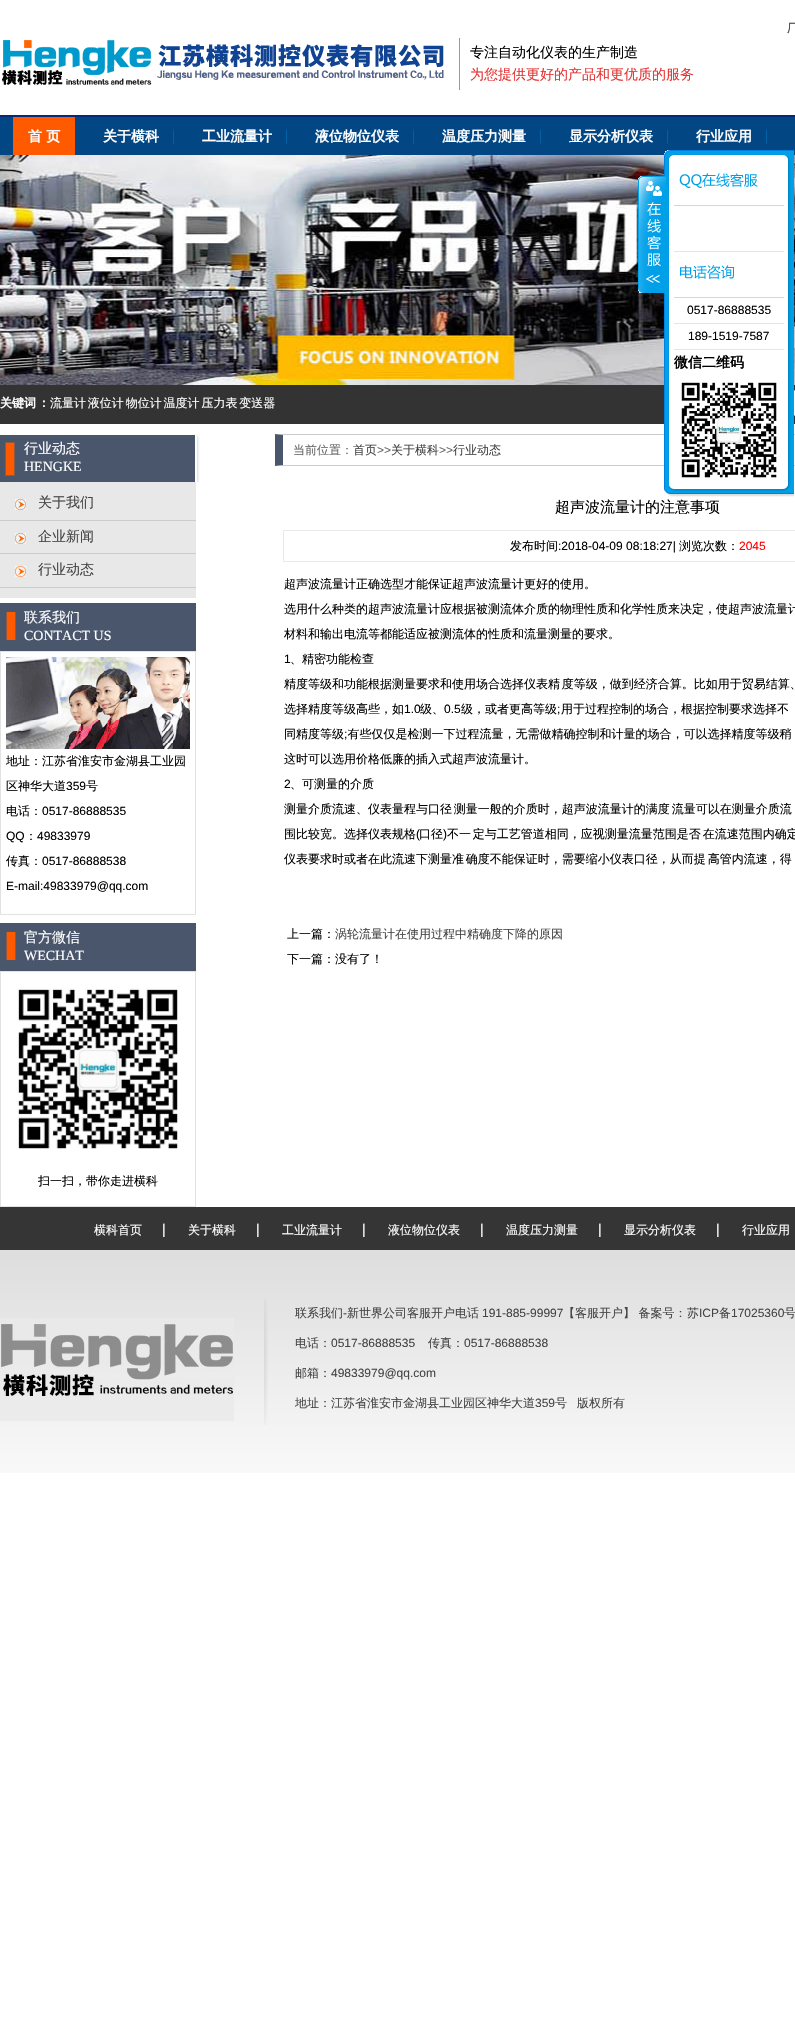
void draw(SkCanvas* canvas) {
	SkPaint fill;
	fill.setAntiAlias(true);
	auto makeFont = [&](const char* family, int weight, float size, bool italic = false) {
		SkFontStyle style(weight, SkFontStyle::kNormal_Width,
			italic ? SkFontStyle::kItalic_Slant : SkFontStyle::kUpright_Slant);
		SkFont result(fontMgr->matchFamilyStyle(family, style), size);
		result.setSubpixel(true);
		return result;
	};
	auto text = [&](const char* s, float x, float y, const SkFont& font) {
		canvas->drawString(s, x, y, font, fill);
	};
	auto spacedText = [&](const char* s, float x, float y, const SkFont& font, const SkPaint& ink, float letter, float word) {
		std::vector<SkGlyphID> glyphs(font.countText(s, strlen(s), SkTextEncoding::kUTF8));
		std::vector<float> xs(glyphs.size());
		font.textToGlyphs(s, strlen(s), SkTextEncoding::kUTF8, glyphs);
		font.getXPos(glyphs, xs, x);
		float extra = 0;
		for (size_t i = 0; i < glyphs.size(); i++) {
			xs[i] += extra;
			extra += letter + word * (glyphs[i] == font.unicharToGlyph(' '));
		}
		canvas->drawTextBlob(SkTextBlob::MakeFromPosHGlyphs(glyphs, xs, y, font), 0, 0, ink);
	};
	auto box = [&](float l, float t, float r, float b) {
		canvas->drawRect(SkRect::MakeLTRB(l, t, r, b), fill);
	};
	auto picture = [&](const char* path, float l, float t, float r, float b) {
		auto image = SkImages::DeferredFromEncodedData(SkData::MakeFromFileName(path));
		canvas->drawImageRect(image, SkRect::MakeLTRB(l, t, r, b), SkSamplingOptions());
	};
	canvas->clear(0xFFFFFFFF);
	fill.setColor(0xFF999999);
	box(459, 38, 460, 90);
	picture("image0.png", 2, 40, 444, 85);
	fill.setColor(0xFF024784);
	box(0, 117, 795, 155);
	fill.setColor(0xFF052977);
	box(0, 115, 795, 117);
	fill.setColor(0xFFFF5A00);
	box(13, 117, 75, 155);
	picture("image1.png", 173, 129, 174, 144);
	picture("image1.png", 286, 129, 287, 144);
	picture("image1.png", 413, 129, 414, 144);
	picture("image1.png", 540, 129, 541, 144);
	picture("image1.png", 667, 129, 668, 144);
	picture("image1.png", 766, 129, 767, 144);
	picture("image2.png", 0, 155, 795, 385);
	fill.setColor(0xFF333333);
	box(0, 385, 795, 424);
	fill.setColor(0xFFCCCCCC);
	canvas->drawPath(SkPathBuilder().moveTo(275, 434).lineTo(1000, 434).lineTo(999, 435).lineTo(283, 435).close().detach(), fill);
	canvas->drawPath(SkPathBuilder().moveTo(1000, 466).lineTo(275, 466).lineTo(283, 465).lineTo(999, 465).close().detach(), fill);
	picture("image6.png", 664, 160, 794, 485);
	picture("image3.png", 638, 176, 666, 293);
	picture("image4.png", 664, 485, 794, 497);
	picture("image5.png", 664, 150, 794, 160);
	fill.setColor(0xFFACE5F9);
	box(674, 205, 784, 206);
	picture("image7.png", 679, 173, 758, 188);
	fill.setColor(0xFFE6E5E4);
	box(674, 251, 784, 252);
	fill.setColor(0xFFACE5F9);
	box(674, 297, 784, 298);
	picture("image8.png", 680, 265, 735, 279);
	fill.setColor(0xFFE6E5E4);
	box(674, 323, 784, 324);
	box(674, 349, 784, 350);
	picture("image9.png", 680, 382, 777, 478);
	picture("image10.png", 794, 390, 795, 416);
	picture("image11.png", 0, 434, 200, 482);
	fill.setColor(0xFFE8E8E8);
	box(0, 482, 196, 598);
	picture("image12.png", 15, 499, 26, 510);
	fill.setColor(0xFFCCCCCC);
	box(0, 520, 196, 521);
	picture("image12.png", 15, 533, 26, 544);
	box(0, 553, 196, 554);
	picture("image12.png", 15, 566, 26, 577);
	box(0, 587, 196, 588);
	picture("image13.png", 0, 603, 196, 651);
	fill.setStyle(SkPaint::kStroke_Style);
	fill.setStrokeWidth(1);
	fill.setColor(0xFFE2E2E2);
	canvas->drawRect(SkRect::MakeLTRB(0.5f, 651.5f, 195.5f, 914.5f), fill);
	picture("image14.png", 6, 657, 190, 749);
	picture("image13.png", 0, 923, 196, 971);
	canvas->drawRect(SkRect::MakeLTRB(0.5f, 971.5f, 195.5f, 1206.5f), fill);
	picture("image15.png", 17, 988, 178, 1149);
	fill.setStyle(SkPaint::kFill_Style);
	fill.setColor(0xFF49566B);
	canvas->drawPath(SkPathBuilder().moveTo(275, 466).lineTo(275, 434).lineTo(283, 435).lineTo(283, 465).close().detach(), fill);
	fill.setColor(0xFFE9E9E9);
	box(283, 530, 795, 531);
	box(283, 561, 795, 562);
	box(283, 530, 284, 562);
	picture("image16.png", 0, 1207, 795, 1473);
	picture("image17.png", 264, 1299, 268, 1425);
	picture("image18.png", 0, 1318, 234, 1421);
	auto font1 = makeFont("WenQuanYi Zen Hei", 500, 12);
	fill.setColor(0xFF444444);
	text("厂", 787, 32, font1);
	auto font2 = makeFont("WenQuanYi Zen Hei", 500, 14);
	fill.setColor(0xFF000000);
	text("专注自动化仪表的生产制造", 470, 57, font2);
	fill.setColor(0xFFE53333);
	text("为您提供更好的产品和更优质的服务", 470, 79, font2);
	auto font3 = makeFont("WenQuanYi Zen Hei", 700, 14);
	fill.setColor(0xFFFFFFFF);
	text("首 页", 28, 141, font3);
	text("关于横科", 103, 141, font3);
	text("工业流量计", 202, 141, font3);
	text("液位物位仪表", 315, 141, font3);
	text("温度压力测量", 442, 141, font3);
	text("显示分析仪表", 569, 141, font3);
	text("行业应用", 696, 141, font3);
	auto font4 = makeFont("Liberation Sans", 400, 12);
	fill.setColor(0xFF000000);
	text("0517-86888535", 687, 314, font4);
	text("189-1519-7587", 688, 340, font4);
	text("微信二维码", 674, 367, font3);
	auto font5 = makeFont("WenQuanYi Zen Hei", 700, 12);
	fill.setColor(0xFFFFFFFF);
	spacedText("关键词 ：", 0, 407, font5, fill, 0, -1.75f);
	spacedText("流量计 液位计 物位计 温度计 压力表 变送器", 50, 407, font1, fill, 0, -1.75f);
	text("行业动态", 24, 453, font2);
	auto font6 = makeFont("Liberation Serif", 400, 14);
	text("HENGKE", 24, 471, font6);
	fill.setColor(0xFF444444);
	text("关于我们", 38, 507, font2);
	text("企业新闻", 38, 541, font2);
	text("行业动态", 38, 574, font2);
	fill.setColor(0xFFFFFFFF);
	text("联系我们", 24, 622, font2);
	text("CONTACT US", 24, 640, font6);
	fill.setColor(0xFF000000);
	text("地址：江苏省淮安市金湖县工业园", 6, 765, font1);
	text("区神华大道", 6, 790, font1);
	text("359", 66, 790, font4);
	text("号", 86, 790, font1);
	text("电话：", 6, 815, font1);
	text("0517-86888535", 42, 815, font4);
	text("QQ", 6, 840, font4);
	text("：", 25, 840, font1);
	text("49833979", 37, 840, font4);
	text("传真：", 6, 865, font1);
	text("0517-86888538", 42, 865, font4);
	text("E-mail:49833979@qq.com", 6, 890, font4);
	fill.setColor(0xFFFFFFFF);
	text("官方微信", 24, 942, font2);
	text("WECHAT", 24, 960, font6);
	fill.setColor(0xFF000000);
	text("扫一扫，带你走进横科", 38, 1185, font1);
	fill.setColor(0xFF666666);
	text("当前位置：", 293, 454, font1);
	fill.setColor(0xFF444444);
	text("首页", 353, 454, font1);
	fill.setColor(0xFF666666);
	text(">>", 377, 454, font4);
	fill.setColor(0xFF444444);
	text("关于横科", 391, 454, font1);
	fill.setColor(0xFF666666);
	text(">>", 439, 454, font4);
	fill.setColor(0xFF444444);
	text("行业动态", 453, 454, font1);
	auto font7 = makeFont("WenQuanYi Zen Hei", 500, 15);
	fill.setColor(0xFF000000);
	text("超声波流量计的注意事项", 555, 512, font7);
	text("发布时间", 510, 550, font1);
	text(":2018-04-09 08:18:27|", 558, 550, font4);
	text("浏览次数：", 679, 550, font1);
	fill.setColor(0xFFFF0000);
	text("2045", 739, 550, font4);
	fill.setColor(0xFF000000);
	text("超声波流量计正确选型才能保证超声波流量计更好的使用。", 284, 588, font1);
	text("选用什么种类的超声波流量计应根据被测流体介质的物理性质和化学性质来决定，使超声波流量计", 284, 613, font1);
	text("材料和输出电流等都能适应被测流体的性质和流量测量的要求。", 284, 638, font1);
	text("1", 284, 663, font4);
	text("、精密功能检查", 290, 663, font1);
	spacedText("精度等级和功能根据测量要求和使用场合选择仪表精 度等级，做到经济合算。比如用于贸易结算、", 284, 688, font1, fill, 0, -1.75f);
	text("选择精度等级高些，如", 284, 713, font1);
	text("1.0", 404, 713, font4);
	text("级、", 420, 713, font1);
	text("0.5", 444, 713, font4);
	text("级，或者更高等级", 461, 713, font1);
	text(";", 557, 713, font4);
	text("用于过程控制的场合，根据控制要求选择不", 561, 713, font1);
	text("同精度等级 有些仅仅是检测一下过程流量，无需做精确控制和计量的场合，可以选择精度等级稍", 284, 738, font1);
	text(";", 344, 738, font4);
	text("这时可以选用价格低廉的插入式超声波流量计。", 284, 763, font1);
	text("2", 284, 788, font4);
	text("、可测量的介质", 290, 788, font1);
	spacedText("测量介质流速、仪表量程与口径 测量一般的介质时，超声波流量计的满度 流量可以在测量介质流", 284, 813, font1, fill, 0, -1.75f);
	text("围比较宽。选择仪表规格", 284, 838, font1);
	text("(", 416, 838, font4);
	text("口径", 419, 838, font1);
	text(")", 443, 838, font4);
	spacedText("不一 定与工艺管道相同，应视测量流量范围是否 在流速范围内确定", 447, 838, font1, fill, 0, -1.75f);
	spacedText("仪表要求时或者在此流速下测量准 确度不能保证时，需要缩小仪表口径，从而提 高管内流速，得", 284, 863, font1, fill, 0, -1.75f);
	text("上一篇：", 287, 938, font1);
	fill.setColor(0xFF444444);
	text("涡轮流量计在使用过程中精确度下降的原因", 335, 938, font1);
	fill.setColor(0xFF000000);
	text("下一篇：没有了！", 287, 963, font1);
	fill.setColor(0xFFFFFFFF);
	text("横科首页", 94, 1234, font1);
	auto font8 = makeFont("Liberation Sans", 400, 14);
	text("|", 162, 1234, font8);
	text("关于横科", 188, 1234, font1);
	text("|", 256, 1234, font8);
	text("工业流量计", 282, 1234, font1);
	text("|", 362, 1234, font8);
	text("液位物位仪表", 388, 1234, font1);
	text("|", 480, 1234, font8);
	text("温度压力测量", 506, 1234, font1);
	text("|", 598, 1234, font8);
	text("显示分析仪表", 624, 1234, font1);
	text("|", 716, 1234, font8);
	text("行业应用", 742, 1234, font1);
	fill.setColor(0xFF444444);
	text("联系我们", 295, 1317, font1);
	text("-", 343, 1317, font4);
	text("新世界公司客服开户电话", 347, 1317, font1);
	text("191-885-99997", 482, 1317, font4);
	text("【客服开户】 备案号：", 563, 1317, font1);
	text("苏", 687, 1317, font1);
	text("ICP", 699, 1317, font4);
	text("备", 719, 1317, font1);
	text("17025360", 731, 1317, font4);
	text("号", 784, 1317, font1);
	text("电话：", 295, 1347, font1);
	text("0517-86888535", 331, 1347, font4);
	text("传真：", 428, 1347, font1);
	text("0517-86888538", 464, 1347, font4);
	text("邮箱：", 295, 1377, font1);
	text("49833979@qq.com", 331, 1377, font4);
	text("地址：江苏省淮安市金湖县工业园区神华大道", 295, 1407, font1);
	text("359", 535, 1407, font4);
	text("号", 555, 1407, font1);
	text("版权所有", 577, 1407, font1);
}
